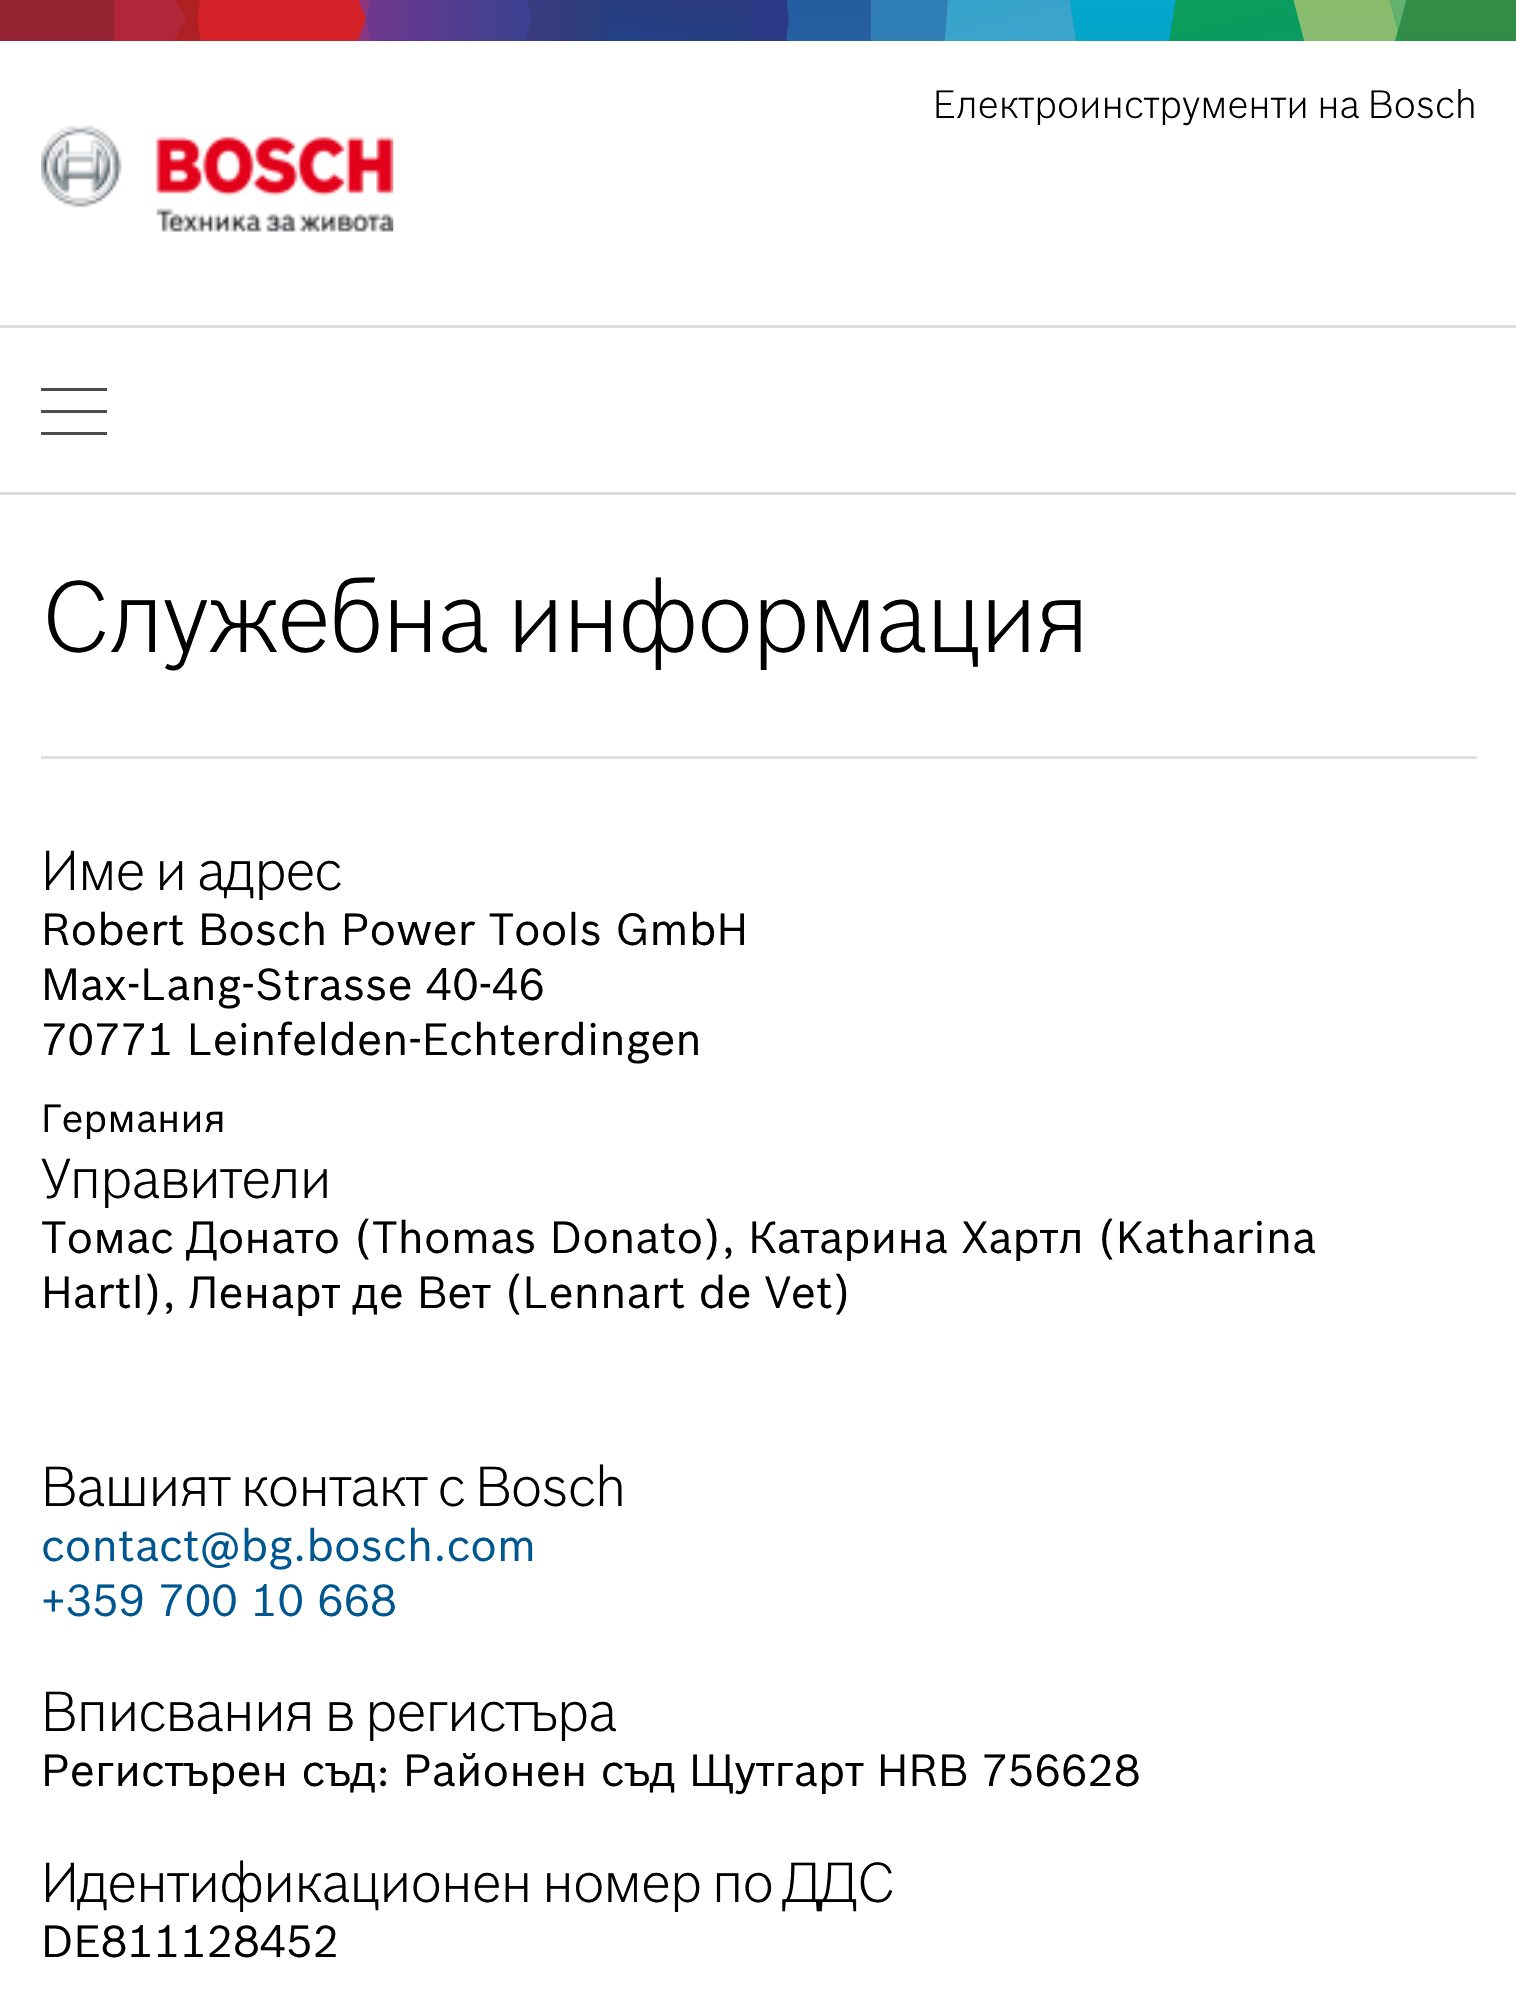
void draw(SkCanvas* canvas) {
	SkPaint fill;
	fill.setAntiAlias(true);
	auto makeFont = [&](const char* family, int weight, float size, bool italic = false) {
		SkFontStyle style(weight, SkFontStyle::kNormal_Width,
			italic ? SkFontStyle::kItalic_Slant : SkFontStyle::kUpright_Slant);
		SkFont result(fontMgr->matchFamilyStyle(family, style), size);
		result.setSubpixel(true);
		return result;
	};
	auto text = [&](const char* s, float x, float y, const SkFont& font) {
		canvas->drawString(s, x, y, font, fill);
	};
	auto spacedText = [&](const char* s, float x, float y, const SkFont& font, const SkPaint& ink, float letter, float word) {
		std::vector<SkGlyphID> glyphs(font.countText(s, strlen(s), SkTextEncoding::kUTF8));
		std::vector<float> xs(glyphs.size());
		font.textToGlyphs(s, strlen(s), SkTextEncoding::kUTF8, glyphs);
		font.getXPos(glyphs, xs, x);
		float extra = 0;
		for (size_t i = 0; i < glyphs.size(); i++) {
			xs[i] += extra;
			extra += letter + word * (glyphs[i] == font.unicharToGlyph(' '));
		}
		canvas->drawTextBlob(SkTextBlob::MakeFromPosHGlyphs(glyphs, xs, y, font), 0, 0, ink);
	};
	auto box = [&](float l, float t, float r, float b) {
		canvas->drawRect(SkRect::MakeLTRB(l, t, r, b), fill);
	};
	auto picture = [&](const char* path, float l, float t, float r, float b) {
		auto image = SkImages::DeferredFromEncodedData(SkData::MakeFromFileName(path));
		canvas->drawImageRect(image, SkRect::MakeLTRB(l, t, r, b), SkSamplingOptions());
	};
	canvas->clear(0xFFFFFFFF);
	picture("image0.png", 0, 0, 1516, 41);
	fill.setColor(0xFFDEDEDE);
	box(0, 325, 1516, 328);
	picture("image1.png", 41, 125, 394, 232);
	box(0, 492, 1516, 495);
	fill.setColor(0xFF4D4D4D);
	box(41, 388, 107, 391);
	box(41, 410, 107, 413);
	box(41, 432, 107, 435);
	fill.setColor(0xFFDFDFE0);
	box(41, 756, 1477, 759);
	auto font1 = makeFont("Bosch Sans", 300, 38.5f);
	fill.setColor(0xFF000000);
	text("Електроинструменти на Bosch", 933, 118, font1);
	auto font2 = makeFont("Bosch Sans", 300, 99);
	spacedText("Служебна информация", 41, 652, font2, fill, -2, 0);
	auto font3 = makeFont("Bosch Sans", 300, 55);
	spacedText("Име и адрес", 41, 890, font3, fill, -1.1f, 0);
	auto font4 = makeFont("Bosch Sans", 400, 44);
	text("Robert Bosch Power Tools GmbH", 41, 945, font4);
	text("Max-Lang-Strasse 40-46", 41, 1000, font4);
	text("70771 Leinfelden-Echterdingen", 41, 1055, font4);
	auto font5 = makeFont("Bosch Sans", 400, 38.5f);
	text("Германия", 41, 1132, font5);
	spacedText("Управители", 41, 1198, font3, fill, -1.1f, 0);
	text("Томас Донато (Thomas Donato), Катарина Хартл (Katharina", 41, 1253, font4);
	text("Hartl), Ленарт де Вет (Lennart de Vet)", 41, 1308, font4);
	spacedText("Вашият контакт с Bosch", 41, 1506, font3, fill, -1.1f, 0);
	fill.setColor(0xFF00568F);
	text("contact@bg.bosch.com", 41, 1561, font4);
	text("+359 700 10 668", 41, 1616, font4);
	fill.setColor(0xFF000000);
	spacedText("Вписвания в регистъра", 41, 1731, font3, fill, -1.1f, 0);
	text("Регистърен съд: Районен съд Щутгарт HRB 756628", 41, 1786, font4);
	spacedText("Идентификационен номер по ДДС", 41, 1902, font3, fill, -1.1f, 0);
	text("DE811128452", 41, 1957, font4);
}
